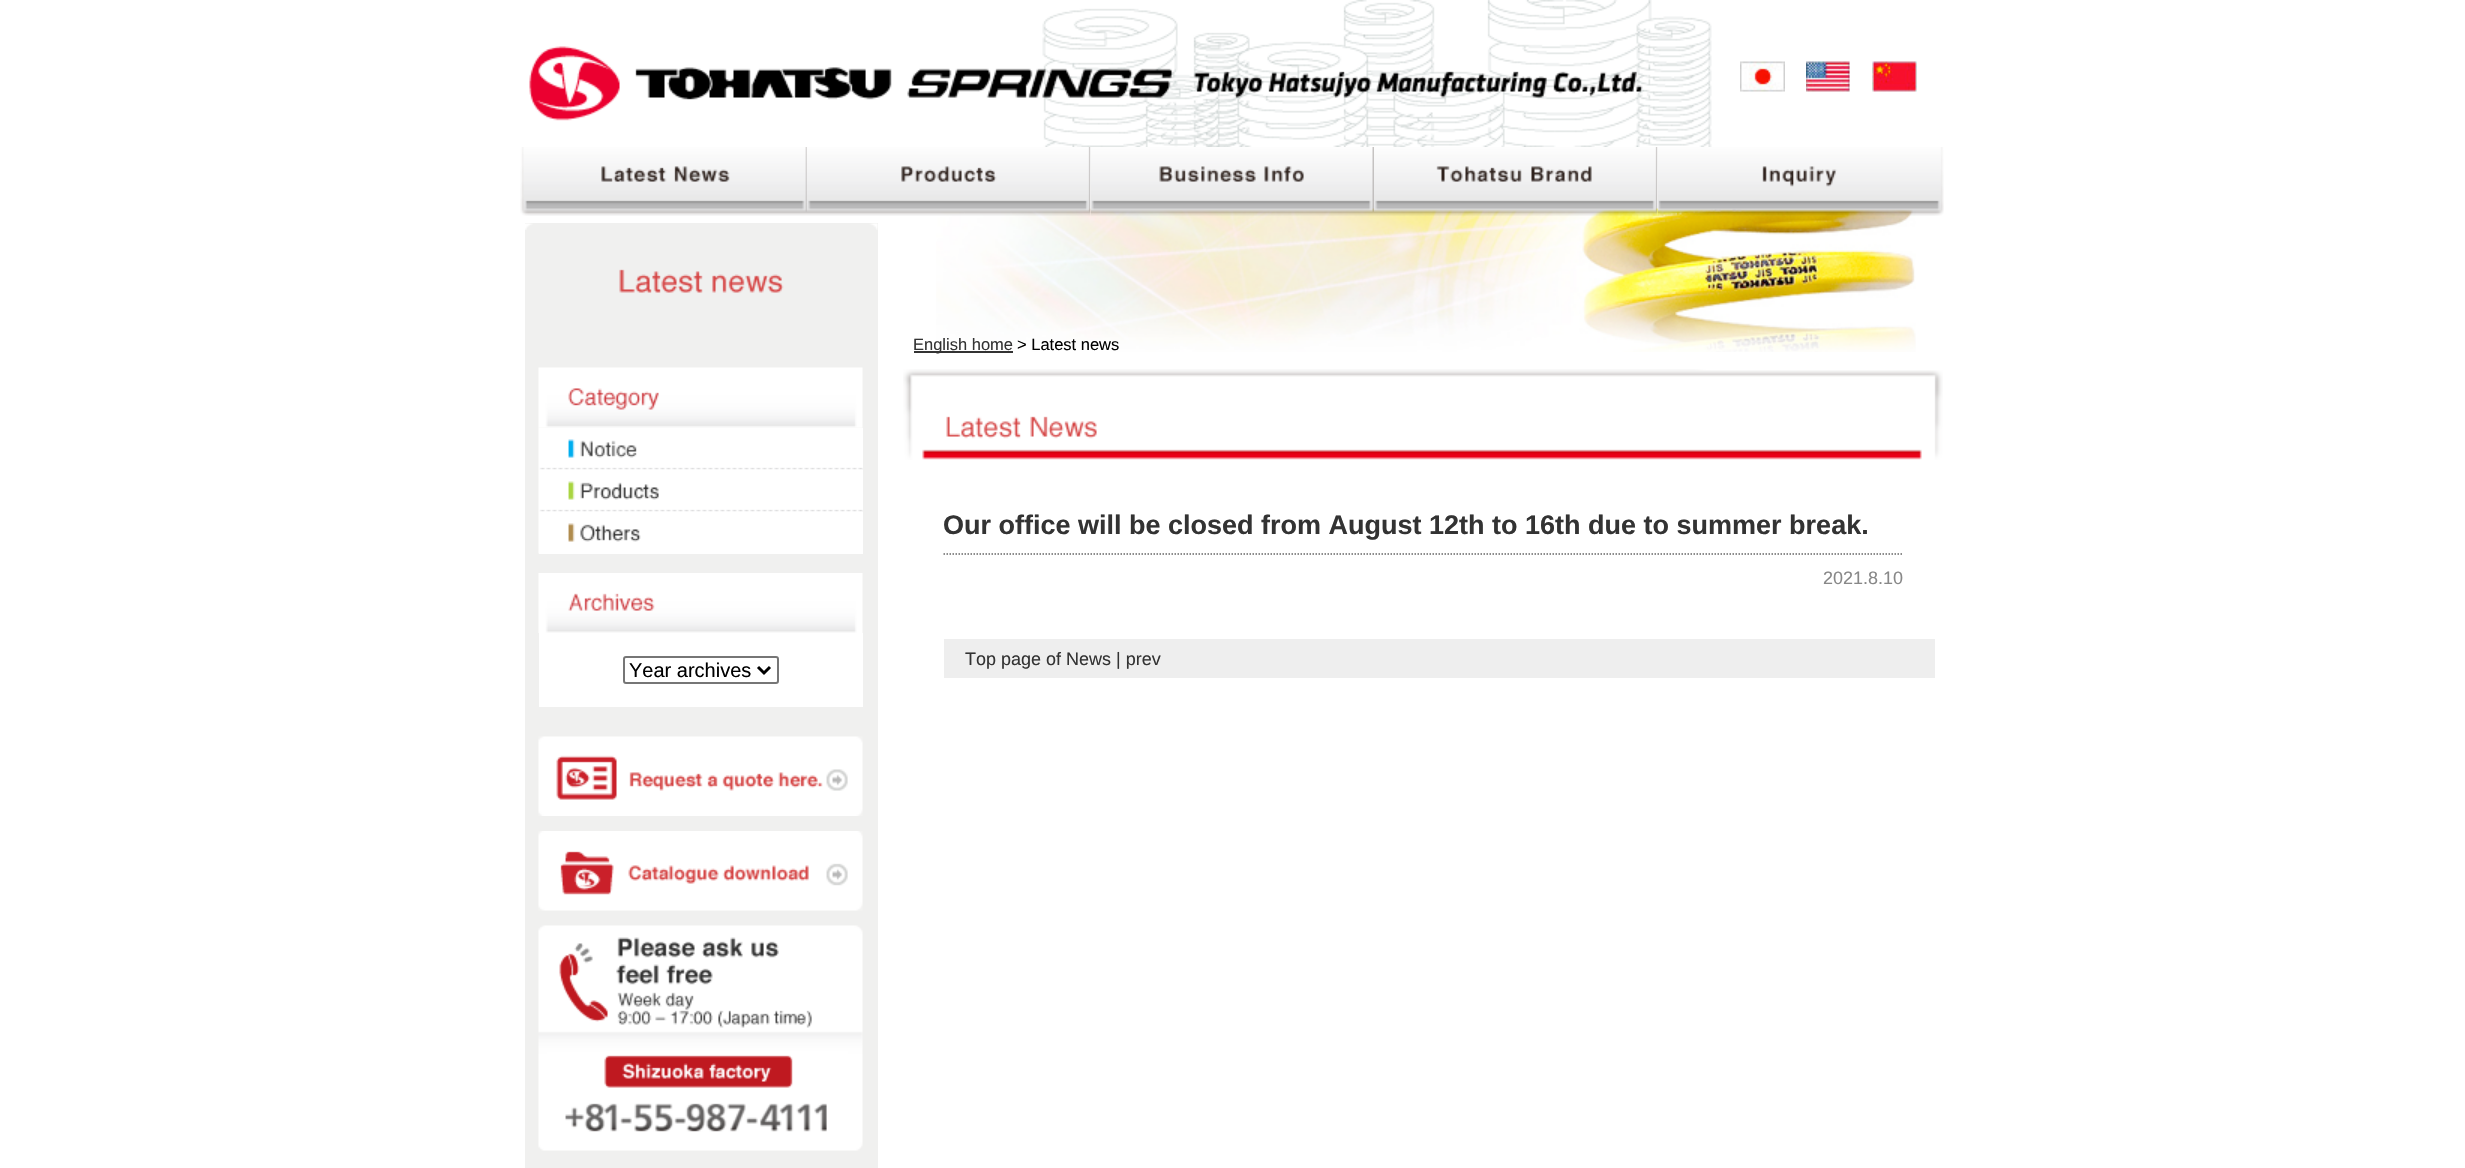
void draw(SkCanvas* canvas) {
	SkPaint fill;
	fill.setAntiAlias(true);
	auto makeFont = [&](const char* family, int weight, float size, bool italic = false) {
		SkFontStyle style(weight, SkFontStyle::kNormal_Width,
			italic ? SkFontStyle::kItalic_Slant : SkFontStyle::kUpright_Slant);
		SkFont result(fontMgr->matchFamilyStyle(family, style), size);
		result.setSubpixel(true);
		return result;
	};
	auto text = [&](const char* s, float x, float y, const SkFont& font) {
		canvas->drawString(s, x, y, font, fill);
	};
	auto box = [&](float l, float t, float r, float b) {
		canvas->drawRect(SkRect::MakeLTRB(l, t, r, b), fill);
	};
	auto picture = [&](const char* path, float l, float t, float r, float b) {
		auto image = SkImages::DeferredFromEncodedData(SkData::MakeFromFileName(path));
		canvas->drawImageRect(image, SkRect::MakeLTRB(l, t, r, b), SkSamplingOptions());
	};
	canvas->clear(0xFFFFFFFF);
	picture("image0.png", 529, 0, 1712, 147);
	picture("image1.png", 1740, 61, 1785, 92);
	picture("image2.png", 1806, 61, 1850, 92);
	picture("image3.png", 1872, 61, 1917, 92);
	picture("image4.png", 520, 147, 807, 216);
	picture("image20.png", 936, 208, 1916, 352);
	picture("image5.png", 807, 147, 1091, 216);
	picture("image6.png", 1090, 147, 1374, 216);
	picture("image7.png", 1374, 147, 1658, 216);
	picture("image8.png", 1657, 147, 1944, 216);
	fill.setColor(0xFFF0F0EF);
	box(525, 223, 878, 1168);
	picture("image9.png", 525, 223, 878, 230);
	picture("image10.png", 619, 269, 784, 293);
	picture("image11.png", 538, 367, 863, 428);
	fill.setColor(0xFFFFFFFF);
	box(539, 428, 863, 554);
	picture("image12.png", 538, 427, 863, 554);
	picture("image13.png", 588, 454, 637, 455);
	picture("image14.png", 540, 469, 862, 497);
	picture("image15.png", 540, 511, 862, 539);
	picture("image16.png", 538, 573, 863, 633);
	box(539, 633, 863, 707);
	fill.setStyle(SkPaint::kStroke_Style);
	fill.setStrokeWidth(2);
	fill.setColor(0xFF767676);
	canvas->drawRoundRect(SkRect::MakeLTRB(624, 657, 778, 683), 2, 2, fill);
	fill.setStrokeWidth(3);
	fill.setColor(0xFF000000);
	canvas->drawPath(SkPathBuilder().moveTo(758, 667).lineTo(764, 673).lineTo(770, 667).detach(), fill);
	picture("image17.png", 538, 736, 863, 816);
	picture("image18.png", 538, 831, 863, 911);
	picture("image19.png", 538, 925, 863, 1151);
	fill.setStyle(SkPaint::kFill_Style);
	fill.setColor(0xFF333333);
	box(914, 351, 1013, 353);
	picture("image21.png", 903, 369, 1943, 460);
	fill.setStyle(SkPaint::kStroke_Style);
	fill.setStrokeWidth(1.5f);
	fill.setColor(0xFF666666);
	fill.setPathEffect(SkDashPathEffect::Make({{1.5f, 1.5f}}, 0));
	canvas->drawPath(SkPathBuilder().moveTo(943.5f, 554).lineTo(1903.5f, 554).detach(), fill);
	fill.setPathEffect(nullptr);
	fill.setStyle(SkPaint::kFill_Style);
	fill.setColor(0xFFEEEEEE);
	box(944, 639, 1935, 678);
	auto font1 = makeFont("Liberation Sans", 400, 20);
	fill.setColor(0xFF000000);
	text("Year archives", 629, 677, font1);
	auto font2 = makeFont("Liberation Sans", 400, 16.5f);
	fill.setColor(0xFF333333);
	text("English home", 913, 350, font2);
	fill.setColor(0xFF000000);
	text("> Latest news", 1017, 350, font2);
	auto font3 = makeFont("Liberation Sans", 700, 27);
	fill.setColor(0xFF333333);
	text("Our office will be closed from August 12th to 16th due to summer break.", 943, 534, font3);
	auto font4 = makeFont("Liberation Sans", 400, 18);
	fill.setColor(0xFF888888);
	text("2021.8.10", 1823, 584, font4);
	fill.setColor(0xFF333333);
	text("Top page of News | prev", 965, 665, font4);
}
